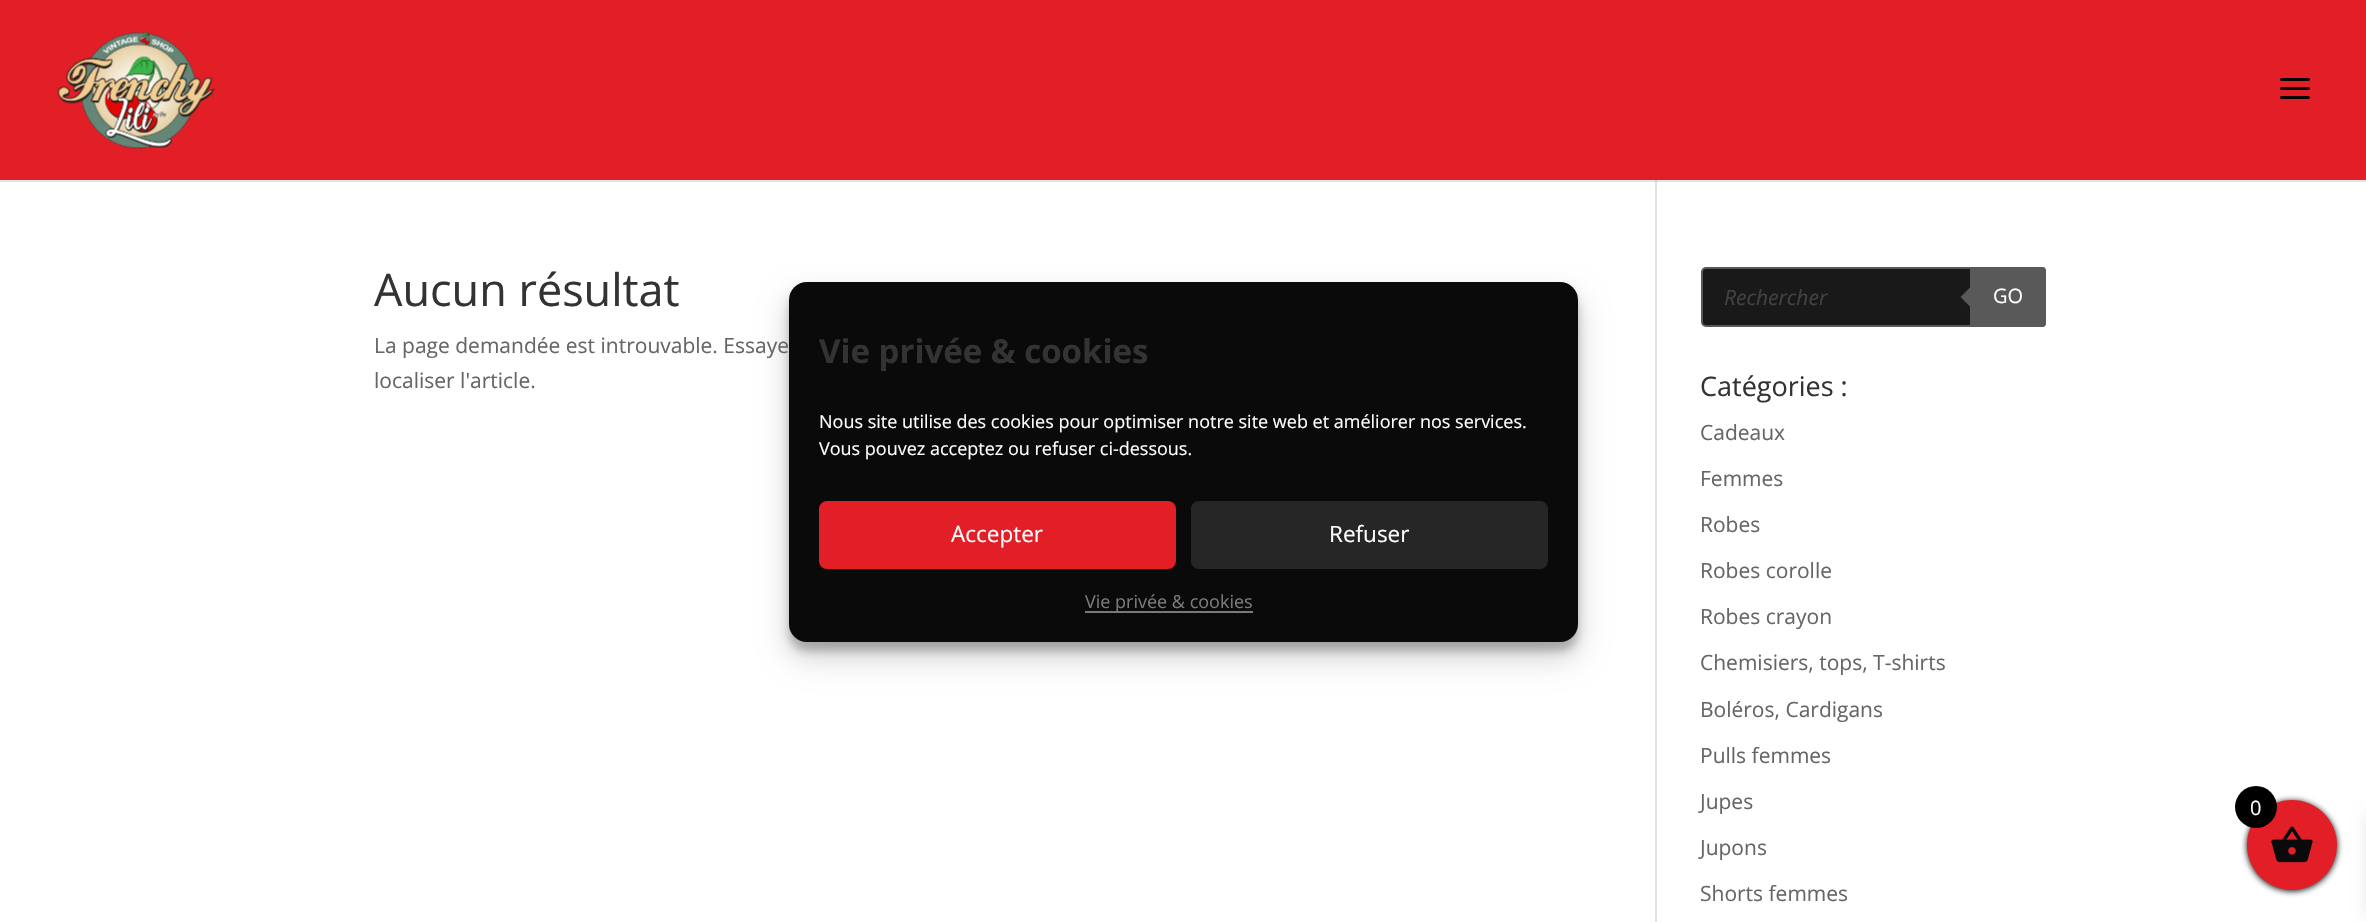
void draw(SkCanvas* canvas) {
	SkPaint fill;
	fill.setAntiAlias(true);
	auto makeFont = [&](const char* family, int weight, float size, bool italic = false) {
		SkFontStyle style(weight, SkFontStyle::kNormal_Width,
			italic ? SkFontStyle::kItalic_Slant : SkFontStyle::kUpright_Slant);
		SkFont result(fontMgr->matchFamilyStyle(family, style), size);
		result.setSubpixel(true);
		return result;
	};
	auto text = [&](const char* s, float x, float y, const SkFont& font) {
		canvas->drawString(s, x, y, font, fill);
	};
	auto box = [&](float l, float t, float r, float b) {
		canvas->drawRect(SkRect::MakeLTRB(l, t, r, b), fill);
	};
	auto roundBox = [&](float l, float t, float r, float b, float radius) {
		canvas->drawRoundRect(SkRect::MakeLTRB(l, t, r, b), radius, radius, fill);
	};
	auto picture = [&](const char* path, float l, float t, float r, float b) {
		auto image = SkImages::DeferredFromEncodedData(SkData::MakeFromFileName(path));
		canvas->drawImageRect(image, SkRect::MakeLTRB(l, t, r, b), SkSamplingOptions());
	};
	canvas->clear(0xFFFFFFFF);
	fill.setColor(0xFFE6E6E6);
	box(0, 180, 2366, 182);
	fill.setColor(0xFFE21E26);
	box(0, 0, 2366, 180);
	picture("image0.png", 57, 31, 216, 149);
	picture("image1.png", 2280, 78, 2310, 99);
	fill.setColor(0xFFE2E2E2);
	box(1655, 180, 1657, 922);
	fill.setColor(0xFFCBCBCB);
	box(1655, 180, 1657, 182);
	fill.setColor(0xFF191919);
	canvas->drawRoundRect(SkRect::MakeLTRB(1702, 268, 2045, 326), 4, 4, fill);
	fill.setStyle(SkPaint::kStroke_Style);
	fill.setStrokeWidth(2);
	fill.setColor(0xFF595959);
	canvas->drawRoundRect(SkRect::MakeLTRB(1702, 268, 2045, 326), 4, 4, fill);
	fill.setStyle(SkPaint::kFill_Style);
	canvas->drawPath(SkPathBuilder().moveTo(1970, 267).lineTo(2043, 267).cubicTo(2044.5f, 267, 2046, 268.5f, 2046, 270).lineTo(2046, 324).cubicTo(2046, 325.5f, 2044.5f, 327, 2043, 327).lineTo(1970, 327).close().detach(), fill);
	canvas->drawPath(SkPathBuilder().moveTo(1972.5f, 285).lineTo(1972.5f, 309).lineTo(1960.5f, 297).close().detach(), fill);
	fill.setColor(0x3B000000);
	fill.setMaskFilter(SkMaskFilter::MakeBlur(kNormal_SkBlurStyle, 4.5f));
	canvas->drawRoundRect(SkRect::MakeLTRB(789, 291, 1578, 651), 18, 18, fill);
	fill.setMaskFilter(nullptr);
	fill.setColor(0x30000000);
	fill.setMaskFilter(SkMaskFilter::MakeBlur(kNormal_SkBlurStyle, 15));
	canvas->drawRoundRect(SkRect::MakeLTRB(789, 297, 1578, 657), 18, 18, fill);
	fill.setMaskFilter(nullptr);
	fill.setColor(0xFF0A0A0A);
	roundBox(789, 282, 1578, 642, 18);
	fill.setColor(0xFFE21E26);
	canvas->drawRoundRect(SkRect::MakeLTRB(820, 502, 1175, 568), 7, 7, fill);
	fill.setStyle(SkPaint::kStroke_Style);
	canvas->drawRoundRect(SkRect::MakeLTRB(820, 502, 1175, 568), 7, 7, fill);
	fill.setStyle(SkPaint::kFill_Style);
	fill.setColor(0xFF262626);
	canvas->drawRoundRect(SkRect::MakeLTRB(1192, 502, 1547, 568), 7, 7, fill);
	fill.setStyle(SkPaint::kStroke_Style);
	canvas->drawRoundRect(SkRect::MakeLTRB(1192, 502, 1547, 568), 7, 7, fill);
	fill.setStyle(SkPaint::kFill_Style);
	fill.setColor(0xFF7A7A7A);
	box(1085, 611, 1253, 613);
	fill.setColor(0xFF0A0A0A);
	fill.setMaskFilter(SkMaskFilter::MakeBlur(kNormal_SkBlurStyle, 3));
	canvas->drawRoundRect(SkRect::MakeLTRB(2247, 801, 2337, 891), 45, 45, fill);
	fill.setMaskFilter(nullptr);
	fill.setColor(0xFFE21E26);
	canvas->drawCircle(2292, 845, 45, fill);
	picture("image2.png", 2271, 826, 2313, 863);
	fill.setColor(0xFF000000);
	canvas->drawCircle(2256, 807, 21, fill);
	fill.setColor(0x1A000000);
	fill.setMaskFilter(SkMaskFilter::MakeBlur(kNormal_SkBlurStyle, 7.5f));
	canvas->drawRect(SkRect::MakeLTRB(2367, 816, 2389, 915), fill);
	fill.setMaskFilter(nullptr);
	auto font1 = makeFont("Open Sans", 400, 45);
	fill.setColor(0xFF333333);
	text("Aucun résultat", 374, 306, font1);
	auto font2 = makeFont("Open Sans", 400, 21);
	fill.setColor(0xFF666666);
	text("La page demandée est introuvable. Essaye", 374, 353, font2);
	text("localiser l'article.", 374, 388, font2);
	auto font3 = makeFont("Open Sans", 400, 21, true);
	fill.setColor(0xFF424242);
	text("Rechercher", 1724, 305, font3);
	auto font4 = makeFont("Open Sans", 400, 20);
	fill.setColor(0xFFFFFFFF);
	text("GO", 1993, 303, font4);
	auto font5 = makeFont("Open Sans", 400, 27);
	fill.setColor(0xFF333333);
	text("Catégories :", 1700, 396, font5);
	fill.setColor(0xFF666666);
	text("Cadeaux", 1700, 440, font2);
	text("Femmes", 1700, 486, font2);
	text("Robes", 1700, 532, font2);
	text("Robes corolle", 1700, 578, font2);
	text("Robes crayon", 1700, 624, font2);
	text("Chemisiers, tops, T-shirts", 1700, 670, font2);
	text("Boléros, Cardigans", 1700, 717, font2);
	text("Pulls femmes", 1700, 763, font2);
	text("Jupes", 1700, 809, font2);
	text("Jupons", 1700, 855, font2);
	text("Shorts femmes", 1700, 901, font2);
	auto font6 = makeFont("Open Sans", 700, 33);
	fill.setColor(0xFF333333);
	text("Vie privée & cookies", 819, 363, font6);
	auto font7 = makeFont("Open Sans", 400, 18);
	fill.setColor(0xFFFFFFFF);
	text("Nous site utilise des cookies pour optimiser notre site web et améliorer nos services.", 819, 428, font7);
	text("Vous pouvez acceptez ou refuser ci-dessous.", 819, 455, font7);
	auto font8 = makeFont("Open Sans", 400, 22.5f);
	text("Accepter", 951, 542, font8);
	text("Refuser", 1329, 542, font8);
	fill.setColor(0xFF7A7A7A);
	text("Vie privée & cookies", 1085, 608, font7);
	fill.setColor(0xFFFFFFFF);
	text("0", 2250, 815, font4);
}
